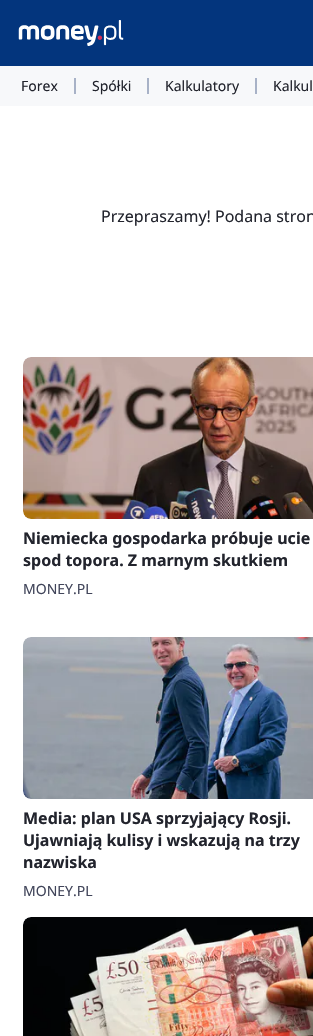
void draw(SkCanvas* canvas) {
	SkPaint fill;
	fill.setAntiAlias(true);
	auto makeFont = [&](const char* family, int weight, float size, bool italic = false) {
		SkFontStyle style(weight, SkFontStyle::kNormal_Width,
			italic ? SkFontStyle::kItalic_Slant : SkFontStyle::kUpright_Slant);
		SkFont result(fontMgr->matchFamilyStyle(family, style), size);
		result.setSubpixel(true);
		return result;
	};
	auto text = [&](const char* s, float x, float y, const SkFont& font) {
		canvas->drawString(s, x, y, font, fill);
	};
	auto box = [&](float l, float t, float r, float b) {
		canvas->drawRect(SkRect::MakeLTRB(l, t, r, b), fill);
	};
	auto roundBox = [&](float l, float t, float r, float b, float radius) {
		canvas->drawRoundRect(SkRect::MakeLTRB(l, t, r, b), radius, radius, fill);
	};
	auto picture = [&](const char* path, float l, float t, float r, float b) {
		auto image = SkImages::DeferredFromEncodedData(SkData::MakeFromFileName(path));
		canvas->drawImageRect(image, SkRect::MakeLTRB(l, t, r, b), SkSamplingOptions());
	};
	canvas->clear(0xFFFFFFFF);
	fill.setColor(0xFF03357D);
	box(0, 0, 313, 66);
	picture("image0.png", 18, 20, 124, 46);
	fill.setColor(0xFFF7F8FA);
	box(0, 66, 313, 106);
	fill.setColor(0xFFA8B2C7);
	box(74, 78, 76, 94);
	box(147, 78, 149, 94);
	box(255, 78, 257, 94);
	fill.setColor(0xFFF7F8FA);
	roundBox(23, 357, 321, 519, 8);
	picture("image1.png", 23, 357, 313, 519);
	roundBox(23, 637, 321, 799, 8);
	picture("image2.png", 23, 637, 313, 799);
	roundBox(23, 917, 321, 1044, 8);
	picture("image3.png", 23, 917, 313, 1036);
	auto font1 = makeFont("Noto Sans", 400, 14);
	fill.setColor(0xFF22242D);
	text("Forex", 21, 91, font1);
	text("Spółki", 92, 91, font1);
	text("Kalkulatory", 165, 91, font1);
	text("Kalkul", 273, 91, font1);
	auto font2 = makeFont("Noto Sans", 400, 16);
	text("Przepraszamy! Podana stron", 101, 222, font2);
	auto font3 = makeFont("Noto Sans", 700, 16);
	text("Niemiecka gospodarka próbuje ucie", 23, 544, font3);
	text("spod topora. Z marnym skutkiem", 23, 566, font3);
	fill.setColor(0xFF41455A);
	text("MONEY.PL", 23, 594, font1);
	fill.setColor(0xFF22242D);
	text("Media: plan USA sprzyjający Rosji.", 23, 824, font3);
	text("Ujawniają kulisy i wskazują na trzy", 23, 846, font3);
	text("nazwiska", 23, 868, font3);
	fill.setColor(0xFF41455A);
	text("MONEY.PL", 23, 896, font1);
}
